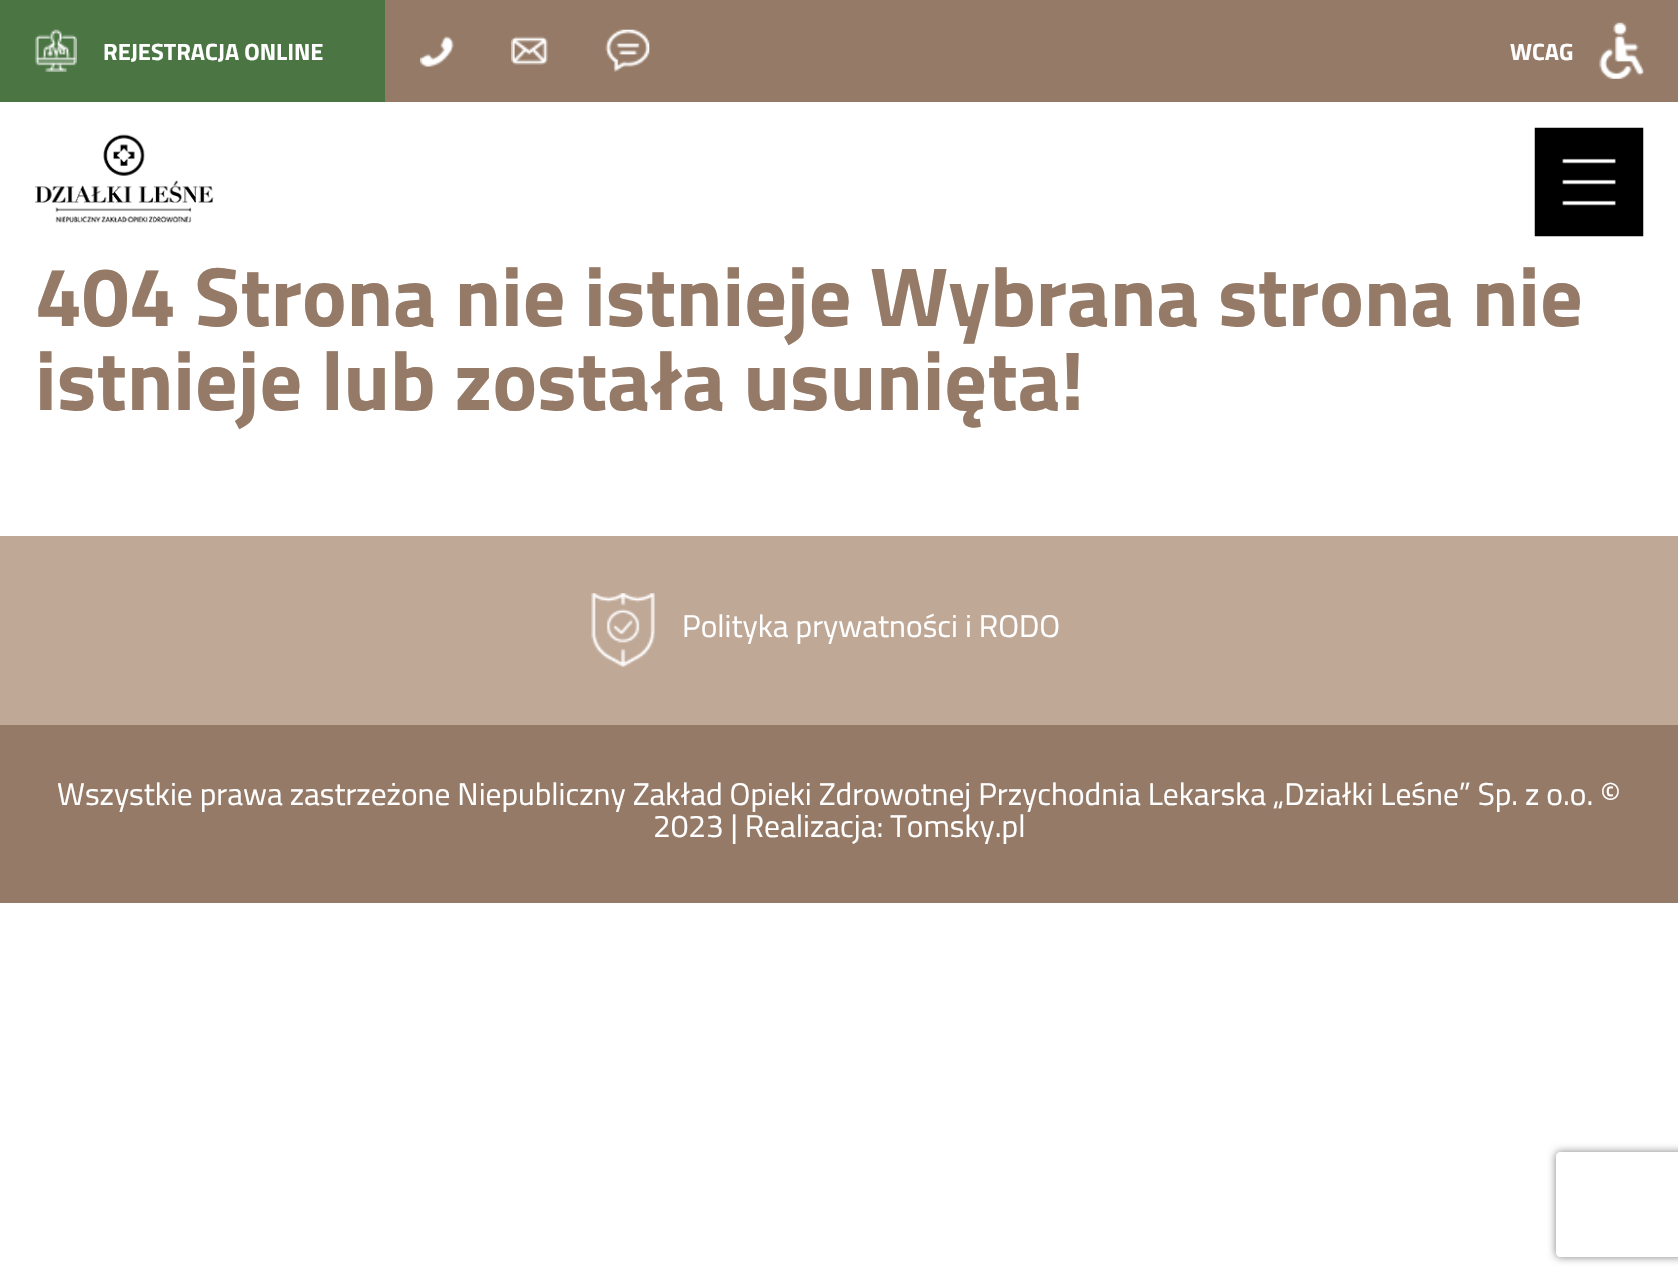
void draw(SkCanvas* canvas) {
	SkPaint fill;
	fill.setAntiAlias(true);
	auto makeFont = [&](const char* family, int weight, float size, bool italic = false) {
		SkFontStyle style(weight, SkFontStyle::kNormal_Width,
			italic ? SkFontStyle::kItalic_Slant : SkFontStyle::kUpright_Slant);
		SkFont result(fontMgr->matchFamilyStyle(family, style), size);
		result.setSubpixel(true);
		return result;
	};
	auto text = [&](const char* s, float x, float y, const SkFont& font) {
		canvas->drawString(s, x, y, font, fill);
	};
	auto box = [&](float l, float t, float r, float b) {
		canvas->drawRect(SkRect::MakeLTRB(l, t, r, b), fill);
	};
	auto picture = [&](const char* path, float l, float t, float r, float b) {
		auto image = SkImages::DeferredFromEncodedData(SkData::MakeFromFileName(path));
		canvas->drawImageRect(image, SkRect::MakeLTRB(l, t, r, b), SkSamplingOptions());
	};
	canvas->clear(0xFFFFFFFF);
	fill.setColor(0xFF4B7644);
	box(0, 0, 385, 102);
	fill.setColor(0xFF957A67);
	box(385, 0, 1678, 102);
	picture("image0.png", 35, 29, 77, 72);
	picture("image1.png", 420, 36, 454, 67);
	picture("image2.png", 511, 36, 548, 65);
	picture("image3.png", 605, 29, 650, 72);
	picture("image4.png", 1599, 22, 1644, 79);
	picture("image5.png", 35, 134, 214, 223);
	picture("image6.png", 1534, 127, 1644, 237);
	fill.setColor(0xFFC0A897);
	box(0, 536, 1678, 725);
	picture("image7.png", 591, 593, 655, 667);
	fill.setColor(0xFF957A67);
	box(0, 725, 1678, 903);
	canvas->save();
	canvas->clipPath(SkPathBuilder(SkPathFillType::kEvenOdd).moveTo(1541, 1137).lineTo(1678, 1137).lineTo(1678, 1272).lineTo(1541, 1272).close().moveTo(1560, 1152).lineTo(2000, 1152).cubicTo(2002, 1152, 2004, 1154, 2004, 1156).lineTo(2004, 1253).cubicTo(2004, 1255, 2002, 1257, 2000, 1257).lineTo(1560, 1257).cubicTo(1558, 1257, 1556, 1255, 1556, 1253).lineTo(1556, 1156).cubicTo(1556, 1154, 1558, 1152, 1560, 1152).close().detach(), true);
	fill.setColor(0xFF808080);
	fill.setMaskFilter(SkMaskFilter::MakeBlur(kNormal_SkBlurStyle, 4.5f));
	canvas->drawRoundRect(SkRect::MakeLTRB(1556, 1152, 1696, 1257), 4, 4, fill);
	fill.setMaskFilter(nullptr);
	canvas->restore();
	auto font1 = makeFont("Cairo", 700, 23.6f);
	fill.setColor(0xFFFFFFFF);
	text("REJESTRACJA ONLINE", 103, 60, font1);
	text("WCAG", 1510, 60, font1);
	auto font2 = makeFont("Cairo", 700, 84);
	fill.setColor(0xFF957A67);
	text("404 Strona nie istnieje Wybrana strona nie", 35, 326, font2);
	text("istnieje lub została usunięta!", 35, 410, font2);
	auto font3 = makeFont("Cairo", 400, 31.5f);
	fill.setColor(0xFFFFFFFF);
	text("Polityka prywatności i RODO", 682, 637, font3);
	text("Wszystkie prawa zastrzeżone Niepubliczny Zakład Opieki Zdrowotnej Przychodnia Lekarska „Działki Leśne” Sp. z o.o. ©", 57, 805, font3);
	text("2023 | Realizacja: Tomsky.pl", 653, 837, font3);
}
